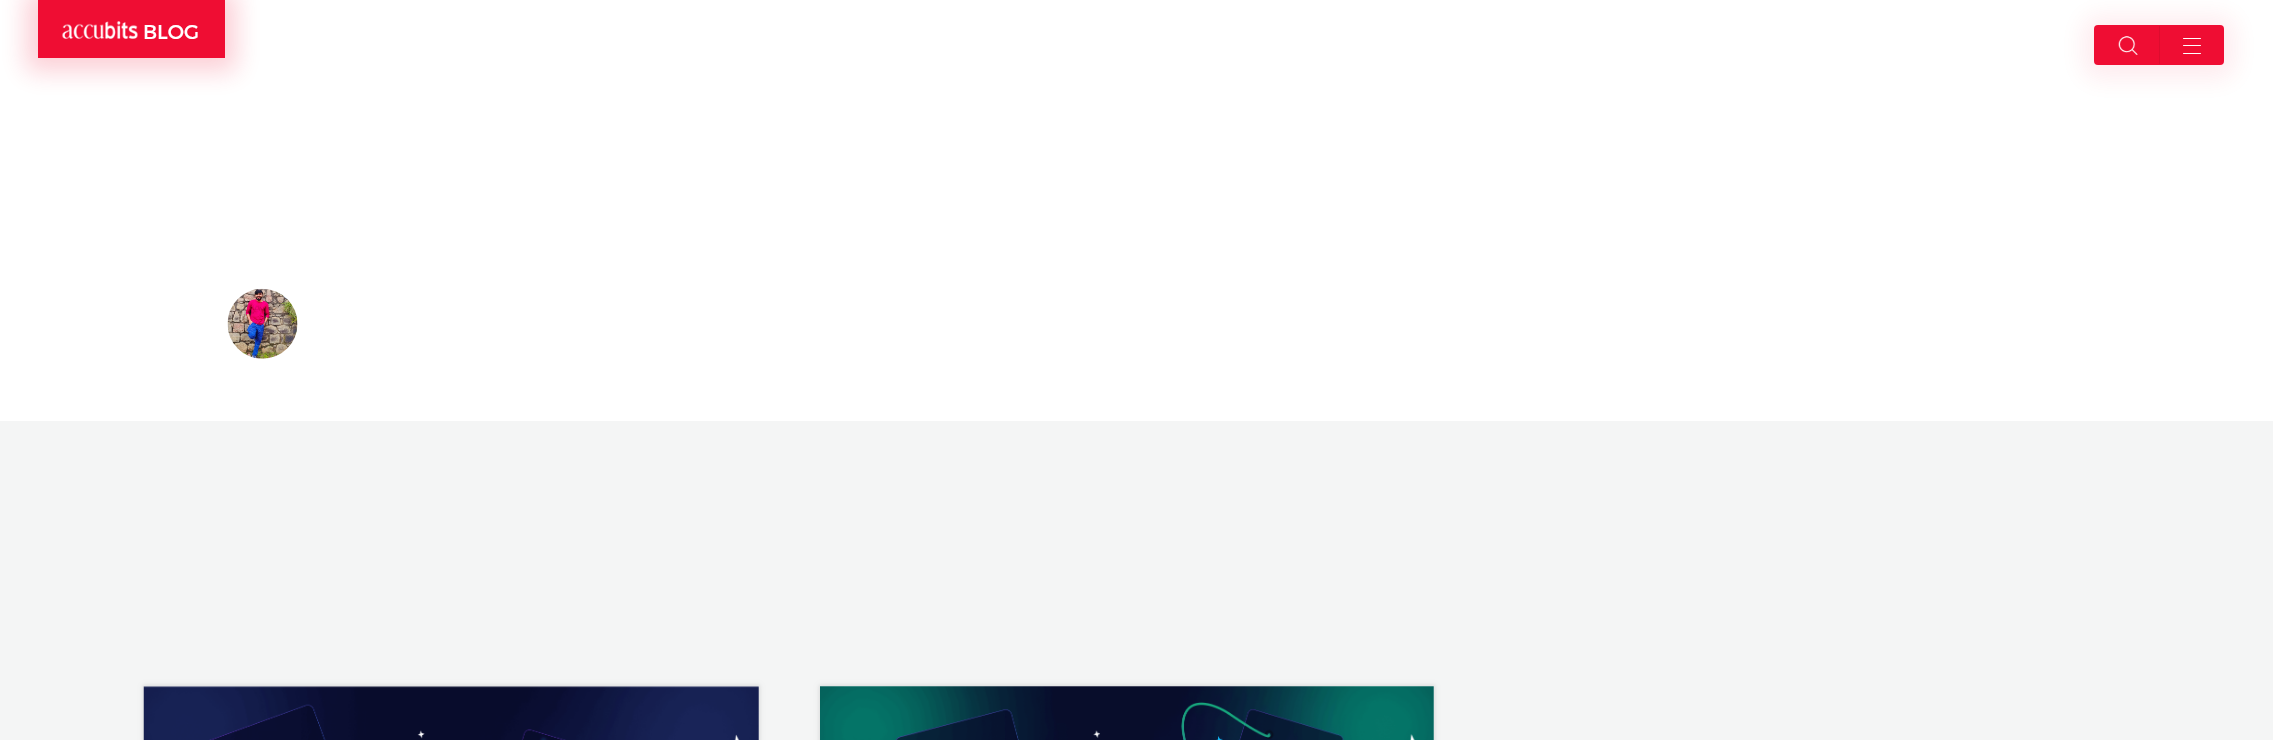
void draw(SkCanvas* canvas) {
	SkPaint fill;
	fill.setAntiAlias(true);
	auto makeFont = [&](const char* family, int weight, float size, bool italic = false) {
		SkFontStyle style(weight, SkFontStyle::kNormal_Width,
			italic ? SkFontStyle::kItalic_Slant : SkFontStyle::kUpright_Slant);
		SkFont result(fontMgr->matchFamilyStyle(family, style), size);
		result.setSubpixel(true);
		return result;
	};
	auto text = [&](const char* s, float x, float y, const SkFont& font) {
		canvas->drawString(s, x, y, font, fill);
	};
	auto box = [&](float l, float t, float r, float b) {
		canvas->drawRect(SkRect::MakeLTRB(l, t, r, b), fill);
	};
	auto roundBox = [&](float l, float t, float r, float b, float radius) {
		canvas->drawRoundRect(SkRect::MakeLTRB(l, t, r, b), radius, radius, fill);
	};
	auto picture = [&](const char* path, float l, float t, float r, float b) {
		auto image = SkImages::DeferredFromEncodedData(SkData::MakeFromFileName(path));
		canvas->drawImageRect(image, SkRect::MakeLTRB(l, t, r, b), SkSamplingOptions());
	};
	canvas->clear(0xFFFFFFFF);
	fill.setColor(0x33EF0D33);
	fill.setMaskFilter(SkMaskFilter::MakeBlur(kNormal_SkBlurStyle, 12));
	canvas->drawRect(SkRect::MakeLTRB(26, -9, 236, 71), fill);
	fill.setMaskFilter(nullptr);
	fill.setColor(0xFFEF0D33);
	box(38, 0, 225, 58);
	picture("image0.png", 62, 21, 138, 39);
	fill.setColor(0x14EF0D33);
	fill.setMaskFilter(SkMaskFilter::MakeBlur(kNormal_SkBlurStyle, 12));
	canvas->drawRoundRect(SkRect::MakeLTRB(2083, 16, 2235, 79), 15, 15, fill);
	fill.setMaskFilter(nullptr);
	fill.setColor(0xFFEF0D33);
	roundBox(2094, 25, 2224, 65, 4);
	fill.setColor(0xFFDE0C2F);
	box(2159, 26, 2160, 64);
	picture("image1.png", 2118, 36, 2138, 55);
	fill.setColor(0xFFFFFFFF);
	roundBox(2183, 38, 2201, 39, 0.5f);
	roundBox(2183, 45, 2201, 46, 0.5f);
	roundBox(2183, 53, 2201, 54, 0.5f);
	picture("image2.png", 227, 288, 298, 359);
	fill.setColor(0xFFF4F5F5);
	box(0, 421, 2273, 740);
	fill.setColor(0x1A000000);
	fill.setMaskFilter(SkMaskFilter::MakeBlur(kNormal_SkBlurStyle, 2));
	canvas->drawRect(SkRect::MakeLTRB(143, 685, 760, 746), fill);
	fill.setMaskFilter(nullptr);
	fill.setColor(0xFFFFFFFF);
	box(144, 686, 759, 740);
	picture("image3.png", 143, 686, 759, 740);
	fill.setColor(0x1A000000);
	fill.setMaskFilter(SkMaskFilter::MakeBlur(kNormal_SkBlurStyle, 2));
	canvas->drawRect(SkRect::MakeLTRB(819, 685, 1435, 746), fill);
	fill.setMaskFilter(nullptr);
	fill.setColor(0xFFFFFFFF);
	box(820, 686, 1434, 740);
	picture("image4.png", 820, 686, 1434, 740);
	auto font1 = makeFont("Montserrat", 400, 20);
	text("BLOG", 143, 39, font1);
}
